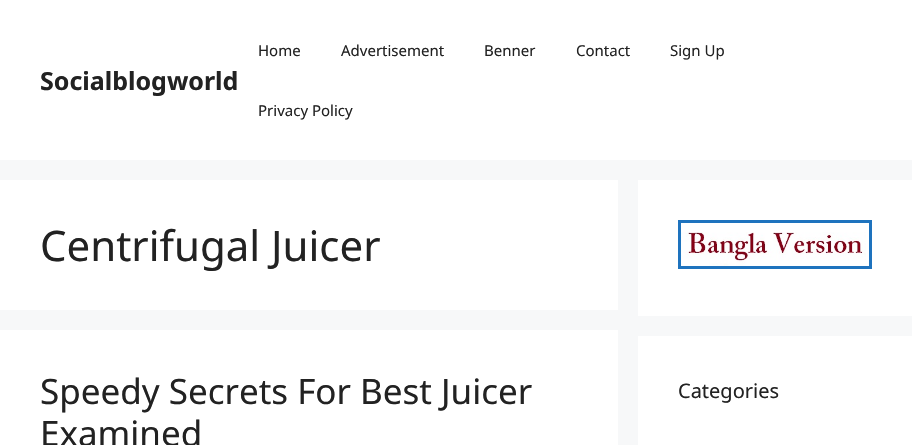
void draw(SkCanvas* canvas) {
	SkPaint fill;
	fill.setAntiAlias(true);
	auto makeFont = [&](const char* family, int weight, float size, bool italic = false) {
		SkFontStyle style(weight, SkFontStyle::kNormal_Width,
			italic ? SkFontStyle::kItalic_Slant : SkFontStyle::kUpright_Slant);
		SkFont result(fontMgr->matchFamilyStyle(family, style), size);
		result.setSubpixel(true);
		return result;
	};
	auto text = [&](const char* s, float x, float y, const SkFont& font) {
		canvas->drawString(s, x, y, font, fill);
	};
	auto box = [&](float l, float t, float r, float b) {
		canvas->drawRect(SkRect::MakeLTRB(l, t, r, b), fill);
	};
	auto picture = [&](const char* path, float l, float t, float r, float b) {
		auto image = SkImages::DeferredFromEncodedData(SkData::MakeFromFileName(path));
		canvas->drawImageRect(image, SkRect::MakeLTRB(l, t, r, b), SkSamplingOptions());
	};
	canvas->clear(0xFFF7F8F9);
	fill.setColor(0xFFFFFFFF);
	box(0, 0, 912, 160);
	box(0, 180, 618, 310);
	box(0, 330, 618, 445);
	box(638, 180, 912, 316);
	fill.setStyle(SkPaint::kStroke_Style);
	fill.setStrokeWidth(3);
	fill.setColor(0xFF1E73BE);
	canvas->drawRect(SkRect::MakeLTRB(679.5f, 221.5f, 870.5f, 267.5f), fill);
	picture("image0.png", 681, 232, 866, 266);
	fill.setStyle(SkPaint::kFill_Style);
	fill.setColor(0xFFFFFFFF);
	box(638, 336, 912, 445);
	auto font1 = makeFont("Noto Sans", 700, 25);
	fill.setColor(0xFF222222);
	text("Socialblogworld", 40, 90, font1);
	auto font2 = makeFont("Noto Sans", 400, 15);
	text("Home", 258, 56, font2);
	text("Advertisement", 341, 56, font2);
	text("Benner", 484, 56, font2);
	text("Contact", 576, 56, font2);
	text("Sign Up", 670, 56, font2);
	text("Privacy Policy", 258, 116, font2);
	auto font3 = makeFont("Noto Sans", 400, 42);
	text("Centrifugal Juicer", 40, 261, font3);
	auto font4 = makeFont("Noto Sans", 400, 35);
	text("Speedy Secrets For Best Juicer", 40, 404, font4);
	text("Examined", 40, 446, font4);
	auto font5 = makeFont("Noto Sans", 400, 20);
	text("Categories", 678, 398, font5);
}
